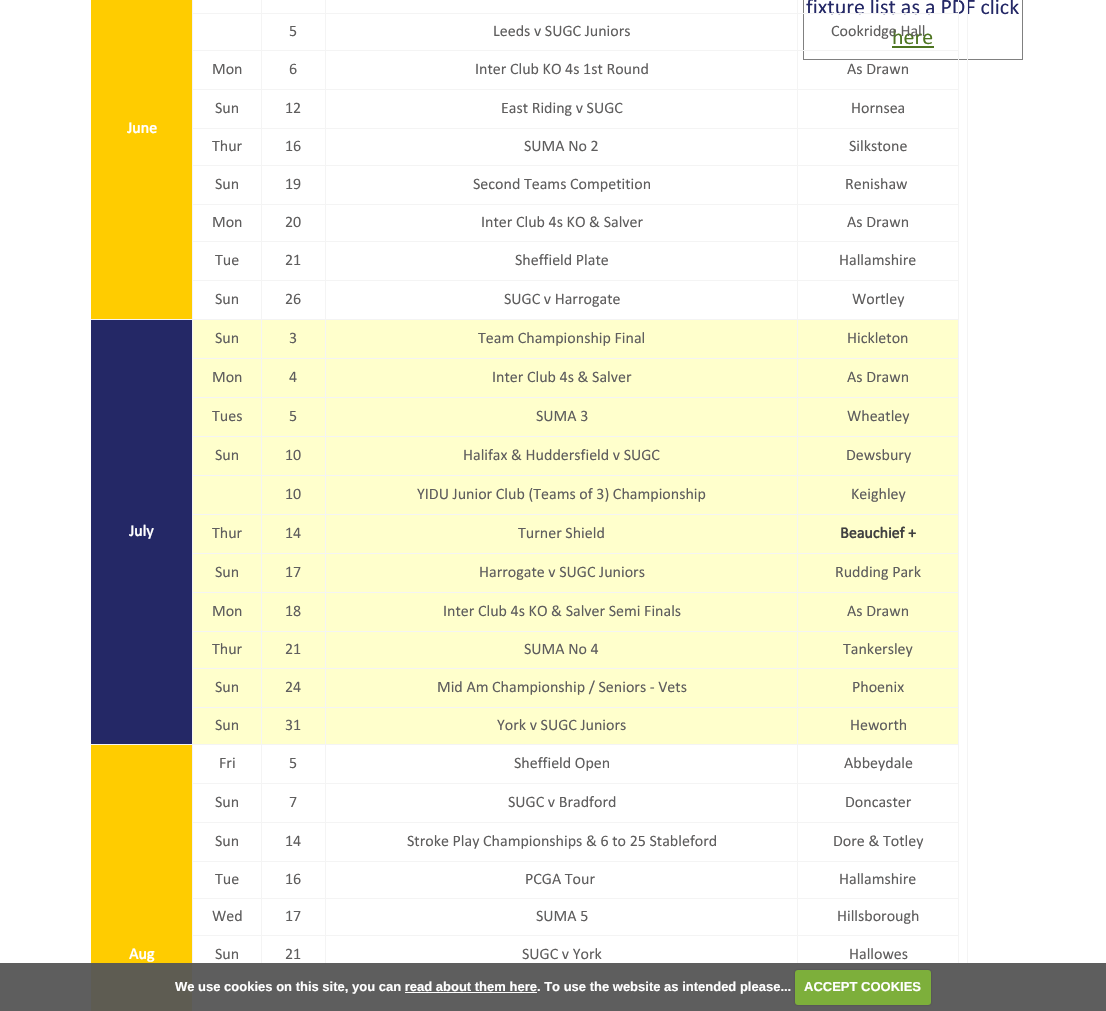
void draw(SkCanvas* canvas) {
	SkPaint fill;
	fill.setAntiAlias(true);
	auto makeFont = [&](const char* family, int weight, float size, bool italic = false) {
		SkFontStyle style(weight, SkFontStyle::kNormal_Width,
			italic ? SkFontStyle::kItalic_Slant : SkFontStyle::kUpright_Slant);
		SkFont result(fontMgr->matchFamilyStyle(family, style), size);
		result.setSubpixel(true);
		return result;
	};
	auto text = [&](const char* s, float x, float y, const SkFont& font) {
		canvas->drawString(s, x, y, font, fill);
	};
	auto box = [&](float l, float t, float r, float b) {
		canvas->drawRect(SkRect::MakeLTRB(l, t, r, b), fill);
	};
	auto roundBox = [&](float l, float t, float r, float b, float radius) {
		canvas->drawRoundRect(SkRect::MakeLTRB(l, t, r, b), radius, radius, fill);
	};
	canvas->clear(0xFFFFFFFF);
	fill.setColor(0xFF5E5E5E);
	box(0, 963, 1106, 1011);
	fill.setColor(0xFF808080);
	box(1022, 0, 1023, 60);
	box(803, 59, 1023, 60);
	box(803, 0, 804, 60);
	fill.setColor(0xFF4D7520);
	box(892, 46, 934, 48);
	fill.setColor(0xFFF4F4F4);
	box(192, 50, 959, 51);
	box(192, 89, 959, 90);
	box(192, 128, 959, 129);
	box(192, 165, 959, 166);
	box(192, 204, 959, 205);
	box(192, 241, 959, 242);
	box(192, 280, 959, 281);
	box(91, 319, 959, 320);
	box(192, 358, 959, 359);
	box(192, 397, 959, 398);
	box(192, 436, 959, 437);
	box(192, 475, 959, 476);
	box(192, 514, 959, 515);
	box(192, 553, 959, 554);
	box(192, 592, 959, 593);
	box(192, 631, 959, 632);
	box(192, 668, 959, 669);
	box(192, 707, 959, 708);
	box(91, 744, 959, 745);
	box(192, 783, 959, 784);
	box(192, 822, 959, 823);
	box(192, 861, 959, 862);
	box(192, 898, 959, 899);
	box(192, 935, 959, 936);
	box(261, 935, 262, 963);
	box(261, 898, 262, 936);
	box(261, 861, 262, 899);
	box(261, 822, 262, 862);
	box(261, 783, 262, 823);
	box(261, 744, 262, 784);
	box(261, 707, 262, 745);
	box(261, 668, 262, 708);
	box(261, 631, 262, 669);
	box(261, 592, 262, 632);
	box(261, 553, 262, 593);
	box(261, 514, 262, 554);
	box(261, 475, 262, 515);
	box(261, 436, 262, 476);
	box(261, 397, 262, 437);
	box(261, 358, 262, 398);
	box(261, 319, 262, 359);
	box(261, 280, 262, 320);
	box(261, 241, 262, 281);
	box(261, 204, 262, 242);
	box(261, 165, 262, 205);
	box(261, 128, 262, 166);
	box(261, 89, 262, 129);
	box(261, 50, 262, 90);
	box(325, 935, 326, 963);
	box(325, 898, 326, 936);
	box(325, 861, 326, 899);
	box(325, 822, 326, 862);
	box(325, 783, 326, 823);
	box(325, 744, 326, 784);
	box(325, 707, 326, 745);
	box(325, 668, 326, 708);
	box(325, 631, 326, 669);
	box(325, 592, 326, 632);
	box(325, 553, 326, 593);
	box(325, 514, 326, 554);
	box(325, 475, 326, 515);
	box(325, 436, 326, 476);
	box(325, 397, 326, 437);
	box(325, 358, 326, 398);
	box(325, 319, 326, 359);
	box(325, 280, 326, 320);
	box(325, 241, 326, 281);
	box(325, 204, 326, 242);
	box(325, 165, 326, 205);
	box(325, 128, 326, 166);
	box(325, 89, 326, 129);
	box(325, 50, 326, 90);
	box(797, 935, 798, 963);
	box(797, 898, 798, 936);
	box(797, 861, 798, 899);
	box(797, 822, 798, 862);
	box(797, 783, 798, 823);
	box(797, 744, 798, 784);
	box(797, 707, 798, 745);
	box(797, 668, 798, 708);
	box(797, 631, 798, 669);
	box(797, 592, 798, 632);
	box(797, 553, 798, 593);
	box(797, 514, 798, 554);
	box(797, 475, 798, 515);
	box(797, 436, 798, 476);
	box(797, 397, 798, 437);
	box(797, 358, 798, 398);
	box(797, 319, 798, 359);
	box(797, 280, 798, 320);
	box(797, 241, 798, 281);
	box(797, 204, 798, 242);
	box(797, 165, 798, 205);
	box(797, 128, 798, 166);
	box(797, 89, 798, 129);
	box(797, 50, 798, 90);
	box(958, 935, 959, 963);
	box(958, 898, 959, 936);
	box(958, 861, 959, 899);
	box(958, 822, 959, 862);
	box(958, 783, 959, 823);
	box(958, 744, 959, 784);
	box(958, 707, 959, 745);
	box(958, 668, 959, 708);
	box(958, 631, 959, 669);
	box(958, 592, 959, 632);
	box(958, 553, 959, 593);
	box(958, 514, 959, 554);
	box(958, 475, 959, 515);
	box(958, 436, 959, 476);
	box(958, 397, 959, 437);
	box(958, 358, 959, 398);
	box(958, 319, 959, 359);
	box(958, 280, 959, 320);
	box(958, 241, 959, 281);
	box(958, 204, 959, 242);
	box(958, 165, 959, 205);
	box(958, 128, 959, 166);
	box(958, 89, 959, 129);
	box(958, 50, 959, 90);
	fill.setColor(0xFFFFCC00);
	box(91, 0, 192, 319);
	fill.setColor(0xFFFFFFCC);
	box(193, 320, 261, 358);
	box(262, 320, 325, 358);
	box(326, 320, 797, 358);
	box(798, 320, 958, 358);
	fill.setColor(0xFF242866);
	box(91, 320, 192, 744);
	fill.setColor(0xFFF4F4F4);
	box(192, 744, 193, 963);
	box(192, 319, 193, 745);
	fill.setColor(0xFFFFFFCC);
	box(193, 359, 261, 397);
	box(262, 359, 325, 397);
	box(326, 359, 797, 397);
	box(798, 359, 958, 397);
	box(193, 398, 261, 436);
	box(262, 398, 325, 436);
	box(326, 398, 797, 436);
	box(798, 398, 958, 436);
	box(193, 437, 261, 475);
	box(262, 437, 325, 475);
	box(326, 437, 797, 475);
	box(798, 437, 958, 475);
	box(193, 476, 261, 514);
	box(262, 476, 325, 514);
	box(326, 476, 797, 514);
	box(798, 476, 958, 514);
	box(193, 515, 261, 553);
	box(262, 515, 325, 553);
	box(326, 515, 797, 553);
	box(798, 515, 958, 553);
	box(193, 554, 261, 592);
	box(262, 554, 325, 592);
	box(326, 554, 797, 592);
	box(798, 554, 958, 592);
	box(193, 593, 261, 631);
	box(262, 593, 325, 631);
	box(326, 593, 797, 631);
	box(798, 593, 958, 631);
	box(193, 632, 261, 668);
	box(262, 632, 325, 668);
	box(326, 632, 797, 668);
	box(798, 632, 958, 668);
	box(193, 669, 261, 707);
	box(262, 669, 325, 707);
	box(326, 669, 797, 707);
	box(798, 669, 958, 707);
	box(193, 708, 261, 744);
	box(262, 708, 325, 744);
	box(326, 708, 797, 744);
	box(798, 708, 958, 744);
	fill.setColor(0xFFFFCC00);
	box(91, 745, 192, 963);
	fill.setColor(0xFF5E5C52);
	box(91, 963, 192, 1011);
	fill.setColor(0x40000000);
	fill.setMaskFilter(SkMaskFilter::MakeBlur(kNormal_SkBlurStyle, 1));
	canvas->drawRoundRect(SkRect::MakeLTRB(795, 970, 931, 1005), 3, 3, fill);
	fill.setMaskFilter(nullptr);
	fill.setColor(0xFF7DAF3B);
	roundBox(795, 970, 931, 1005, 3);
	fill.setColor(0xFFFFFFFF);
	box(405, 992, 537, 993);
	auto font1 = makeFont("Calibri", 400, 22);
	fill.setColor(0xFF242866);
	text("fixture list as a PDF click", 806, 14, font1);
	fill.setColor(0xFF4D7520);
	text("here", 892, 44, font1);
	fill.setColor(0xFFF4F4F4);
	box(967, 0, 968, 963);
	auto font2 = makeFont("Calibri", 400, 16);
	fill.setColor(0xFF5F5E5E);
	text("5", 289, 36, font2);
	text("Leeds v SUGC Juniors", 493, 36, font2);
	fill.setColor(0xFFF4F4F4);
	box(192, 13, 959, 14);
	box(261, 0, 262, 51);
	box(325, 0, 326, 51);
	box(797, 0, 798, 51);
	box(958, 0, 959, 51);
	fill.setColor(0xFF5F5E5E);
	text("Cookridge Hall", 831, 36, font2);
	text("Mon", 212, 74, font2);
	text("6", 289, 74, font2);
	text("Inter Club KO 4s 1st Round", 475, 74, font2);
	text("As Drawn", 847, 74, font2);
	text("Sun", 215, 113, font2);
	text("12", 285, 113, font2);
	text("East Riding v SUGC", 501, 113, font2);
	text("Hornsea", 851, 113, font2);
	fill.setColor(0xFFF4F4F4);
	box(192, 0, 193, 320);
	auto font3 = makeFont("Calibri", 700, 16);
	fill.setColor(0xFFFFFFFF);
	text("June", 127, 133, font3);
	fill.setColor(0xFF5F5E5E);
	text("Thur", 212, 151, font2);
	text("16", 285, 151, font2);
	text("SUMA No 2", 524, 151, font2);
	text("Silkstone", 849, 151, font2);
	text("Sun", 215, 189, font2);
	text("19", 285, 189, font2);
	text("Second Teams Competition", 473, 189, font2);
	text("Renishaw", 845, 189, font2);
	text("Mon", 212, 227, font2);
	text("20", 285, 227, font2);
	text("Inter Club 4s KO & Salver", 481, 227, font2);
	text("As Drawn", 847, 227, font2);
	text("Tue", 215, 265, font2);
	text("21", 285, 265, font2);
	text("Sheffield Plate", 515, 265, font2);
	text("Hallamshire", 839, 265, font2);
	text("Sun", 215, 304, font2);
	text("26", 285, 304, font2);
	text("SUGC v Harrogate", 504, 304, font2);
	text("Wortley", 852, 304, font2);
	text("Sun", 215, 343, font2);
	text("3", 289, 343, font2);
	text("Team Championship Final", 478, 343, font2);
	text("Hickleton", 847, 343, font2);
	fill.setColor(0xFFFFFFFF);
	text("July", 129, 536, font3);
	fill.setColor(0xFF5F5E5E);
	text("Mon", 212, 382, font2);
	text("4", 289, 382, font2);
	text("Inter Club 4s & Salver", 492, 382, font2);
	text("As Drawn", 847, 382, font2);
	text("Tues", 212, 421, font2);
	text("5", 289, 421, font2);
	text("SUMA 3", 536, 421, font2);
	text("Wheatley", 847, 421, font2);
	text("Sun", 215, 460, font2);
	text("10", 285, 460, font2);
	text("Halifax & Huddersfield v SUGC", 463, 460, font2);
	text("Dewsbury", 846, 460, font2);
	text("10", 285, 499, font2);
	text("YIDU Junior Club (Teams of 3) Championship", 417, 499, font2);
	text("Keighley", 851, 499, font2);
	text("Thur", 212, 538, font2);
	text("14", 285, 538, font2);
	text("Turner Shield", 518, 538, font2);
	fill.setColor(0xFF404040);
	text("Beauchief +", 840, 538, font3);
	fill.setColor(0xFF5F5E5E);
	text("Sun", 215, 577, font2);
	text("17", 285, 577, font2);
	text("Harrogate v SUGC Juniors", 479, 577, font2);
	text("Rudding Park", 835, 577, font2);
	text("Mon", 212, 616, font2);
	text("18", 285, 616, font2);
	text("Inter Club 4s KO & Salver Semi Finals", 443, 616, font2);
	text("As Drawn", 847, 616, font2);
	text("Thur", 212, 654, font2);
	text("21", 285, 654, font2);
	text("SUMA No 4", 524, 654, font2);
	text("Tankersley", 843, 654, font2);
	text("Sun", 215, 692, font2);
	text("24", 285, 692, font2);
	text("Mid Am Championship / Seniors - Vets", 437, 692, font2);
	text("Phoenix", 852, 692, font2);
	text("Sun", 215, 730, font2);
	text("31", 285, 730, font2);
	text("York v SUGC Juniors", 497, 730, font2);
	text("Heworth", 850, 730, font2);
	text("Fri", 219, 768, font2);
	text("5", 289, 768, font2);
	text("Sheffield Open", 514, 768, font2);
	text("Abbeydale", 844, 768, font2);
	fill.setColor(0xFFFFFFFF);
	text("Aug", 129, 959, font3);
	fill.setColor(0xFF5F5E5E);
	text("Sun", 215, 807, font2);
	text("7", 289, 807, font2);
	text("SUGC v Bradford", 508, 807, font2);
	text("Doncaster", 845, 807, font2);
	text("Sun", 215, 846, font2);
	text("14", 285, 846, font2);
	text("Stroke Play Championships & 6 to 25 Stableford", 407, 846, font2);
	text("Dore & Totley", 833, 846, font2);
	text("Tue", 215, 884, font2);
	text("16", 285, 884, font2);
	text("PCGA Tour", 525, 884, font2);
	text("Hallamshire", 839, 884, font2);
	text("Wed", 212, 921, font2);
	text("17", 285, 921, font2);
	text("SUMA 5", 536, 921, font2);
	text("Hillsborough", 837, 921, font2);
	text("Sun", 215, 959, font2);
	text("21", 285, 959, font2);
	text("SUGC v York", 522, 959, font2);
	text("Hallowes", 849, 959, font2);
	auto font4 = makeFont("Liberation Sans", 700, 13);
	fill.setColor(0xFFFFFFFF);
	text("We use cookies on this site, you can read about them here. To use the website as intended please...", 175, 991, font4);
	text("ACCEPT COOKIES", 804, 991, font4);
}
